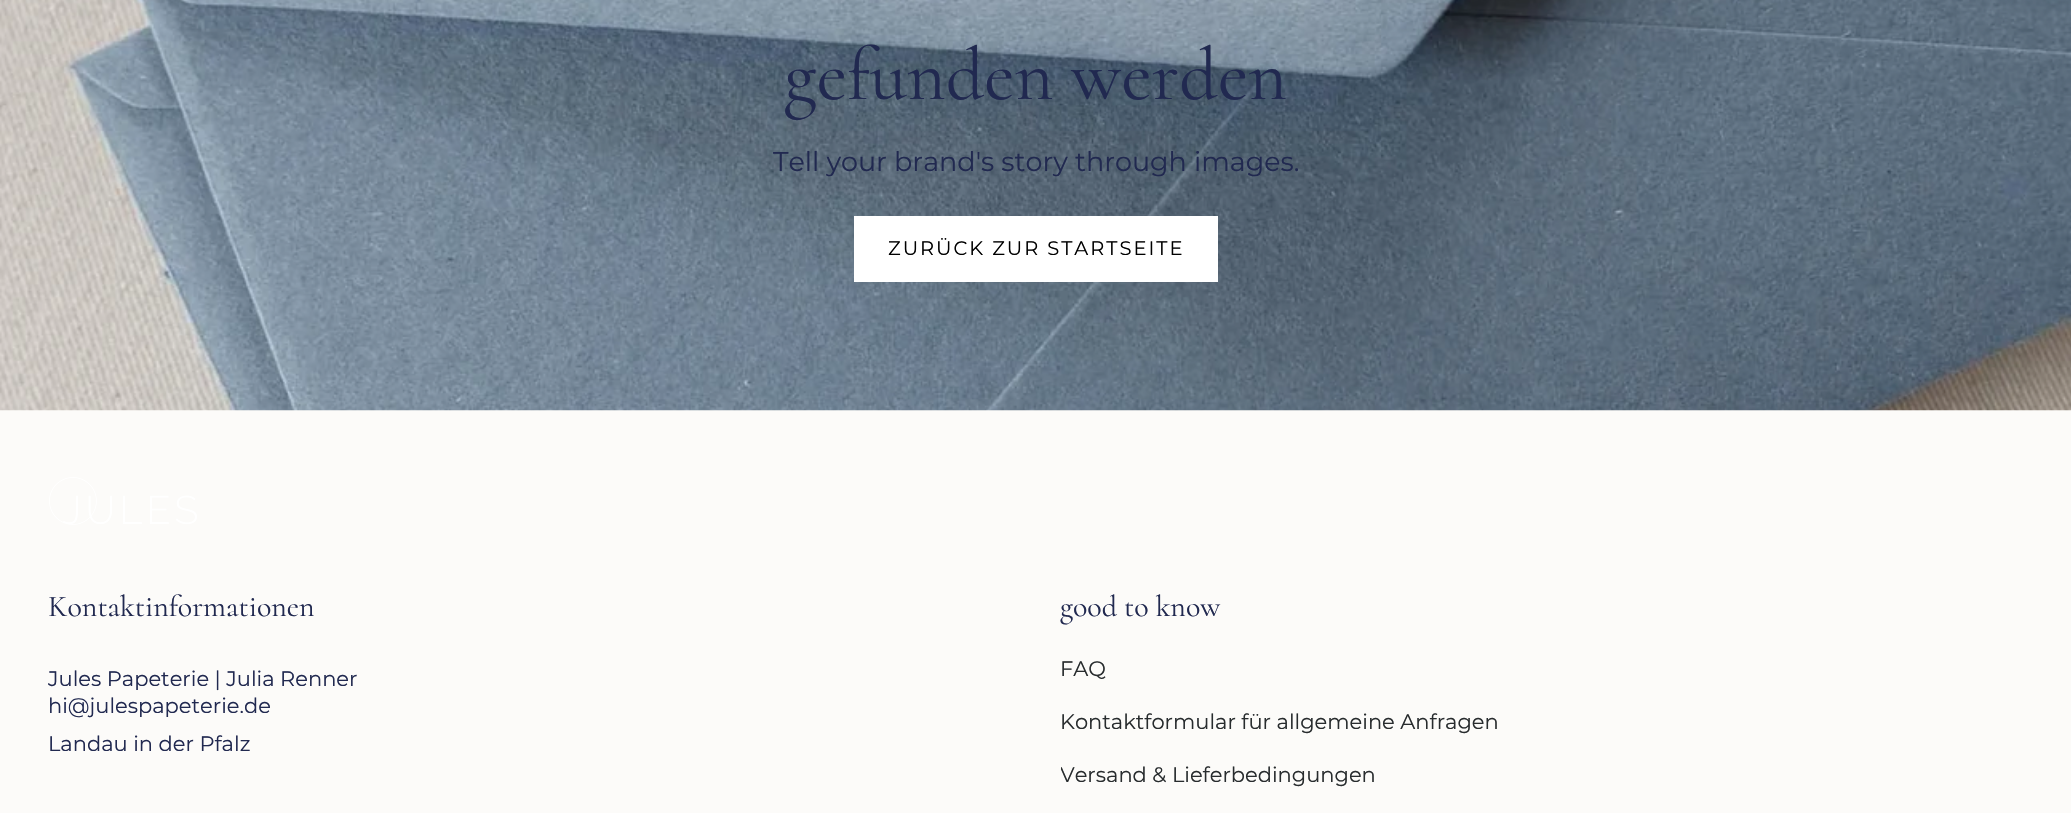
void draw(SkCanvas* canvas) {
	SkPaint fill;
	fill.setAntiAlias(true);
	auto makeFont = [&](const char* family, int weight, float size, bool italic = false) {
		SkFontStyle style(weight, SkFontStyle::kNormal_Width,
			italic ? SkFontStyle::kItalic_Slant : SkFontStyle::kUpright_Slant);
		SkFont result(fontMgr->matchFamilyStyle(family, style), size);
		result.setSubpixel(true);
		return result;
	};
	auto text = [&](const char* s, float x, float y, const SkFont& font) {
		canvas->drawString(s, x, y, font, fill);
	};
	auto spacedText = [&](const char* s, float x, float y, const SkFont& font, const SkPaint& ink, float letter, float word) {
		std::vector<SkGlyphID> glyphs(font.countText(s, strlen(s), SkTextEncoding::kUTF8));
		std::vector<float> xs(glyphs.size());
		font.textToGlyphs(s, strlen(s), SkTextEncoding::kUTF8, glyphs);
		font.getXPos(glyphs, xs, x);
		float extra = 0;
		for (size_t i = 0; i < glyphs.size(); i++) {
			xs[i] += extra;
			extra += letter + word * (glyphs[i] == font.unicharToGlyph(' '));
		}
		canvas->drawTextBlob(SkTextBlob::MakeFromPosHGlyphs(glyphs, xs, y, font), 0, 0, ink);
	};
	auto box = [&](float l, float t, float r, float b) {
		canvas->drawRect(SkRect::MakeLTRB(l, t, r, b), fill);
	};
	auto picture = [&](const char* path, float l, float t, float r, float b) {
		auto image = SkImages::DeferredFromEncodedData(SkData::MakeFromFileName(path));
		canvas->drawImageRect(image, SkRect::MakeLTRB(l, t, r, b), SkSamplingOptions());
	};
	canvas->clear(0xFFFCFBF9);
	picture("image0.png", 0, 0, 2071, 411);
	fill.setColor(0xFFFFFFFF);
	box(854, 216, 1218, 282);
	picture("image1.png", 49, 477, 197, 525);
	auto font1 = makeFont("Cormorant", 400, 75);
	fill.setColor(0xFF212950);
	text("gefunden werden", 784, 99, font1);
	auto font2 = makeFont("Montserrat", 400, 27);
	text("Tell your brand's story through images.", 773, 171, font2);
	auto font3 = makeFont("Montserrat", 400, 19.5f);
	fill.setColor(0xFF000000);
	spacedText("ZURÜCK ZUR STARTSEITE", 888, 255, font3, fill, 1.95f, 0);
	auto font4 = makeFont("Cormorant", 400, 30);
	fill.setColor(0xFF212950);
	text("Kontaktinformationen", 48, 616, font4);
	auto font5 = makeFont("Montserrat", 400, 21);
	text("Jules Papeterie | Julia Renner", 48, 686, font5);
	text("hi@julespapeterie.de", 48, 713, font5);
	text("Landau in der Pfalz", 48, 751, font5);
	text("good to know", 1060, 616, font4);
	fill.setColor(0xFF282C2E);
	text("FAQ", 1060, 676, font5);
	text("Kontaktformular für allgemeine Anfragen", 1060, 729, font5);
	canvas->save();
	canvas->clipRect(SkRect::MakeLTRB(1061, 656, 2024, 792));
	text("Versand & Lieferbedingungen", 1060, 782, font5);
	canvas->restore();
}
